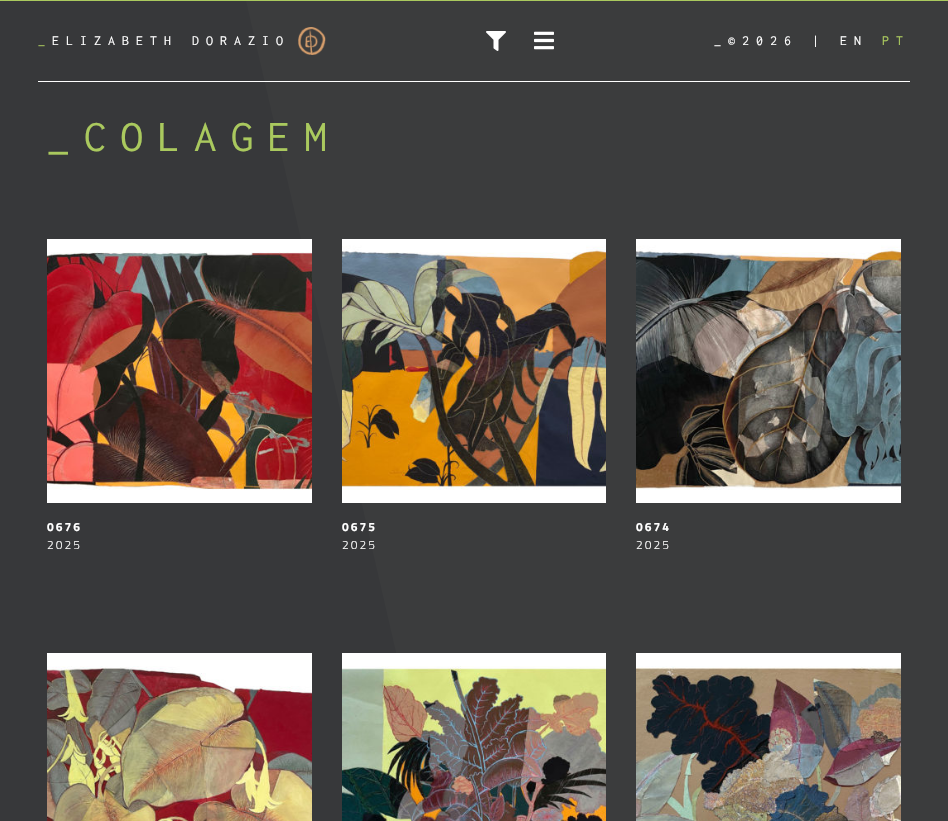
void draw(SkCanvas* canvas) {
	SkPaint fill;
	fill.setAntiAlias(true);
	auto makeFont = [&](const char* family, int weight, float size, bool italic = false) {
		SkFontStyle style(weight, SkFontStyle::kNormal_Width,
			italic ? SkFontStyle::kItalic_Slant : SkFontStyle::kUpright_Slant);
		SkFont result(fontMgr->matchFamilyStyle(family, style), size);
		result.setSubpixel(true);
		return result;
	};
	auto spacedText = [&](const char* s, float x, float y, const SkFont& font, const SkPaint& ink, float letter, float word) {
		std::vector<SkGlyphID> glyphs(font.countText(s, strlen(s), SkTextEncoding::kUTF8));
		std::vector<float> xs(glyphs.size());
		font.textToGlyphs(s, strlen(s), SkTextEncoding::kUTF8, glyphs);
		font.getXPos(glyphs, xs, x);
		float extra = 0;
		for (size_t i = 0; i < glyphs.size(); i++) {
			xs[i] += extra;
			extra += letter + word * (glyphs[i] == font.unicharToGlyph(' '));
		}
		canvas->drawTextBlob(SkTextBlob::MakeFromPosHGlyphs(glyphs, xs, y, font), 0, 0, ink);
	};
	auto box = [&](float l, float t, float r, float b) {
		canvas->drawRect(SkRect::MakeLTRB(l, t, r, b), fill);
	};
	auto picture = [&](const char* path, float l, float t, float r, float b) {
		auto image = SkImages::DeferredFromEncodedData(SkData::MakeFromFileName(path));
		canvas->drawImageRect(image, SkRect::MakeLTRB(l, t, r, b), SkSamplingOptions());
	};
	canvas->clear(0xFF3B3C3D);
	fill.setColor(0xFF37383A);
	box(0, 1, 246, 821);
	canvas->drawPath(SkPathBuilder().moveTo(246, 821).lineTo(246, 0).lineTo(435, 821).close().detach(), fill);
	fill.setColor(0xFFFFFFFF);
	box(38, 81, 910, 82);
	fill.setColor(0xFFAAC95E);
	box(0, 0, 948, 1);
	picture("image0.png", 298, 27, 326, 55);
	picture("image1.png", 486, 31, 506, 51);
	picture("image2.png", 534, 31, 554, 50);
	picture("image3.png", 47, 239, 312, 503);
	picture("image4.png", 342, 239, 606, 503);
	picture("image5.png", 636, 239, 901, 503);
	picture("image6.png", 47, 653, 312, 821);
	picture("image7.png", 342, 653, 606, 821);
	picture("image8.png", 636, 653, 901, 821);
	auto font1 = makeFont("Inconsolata", 400, 14);
	spacedText("_", 38, 45, font1, fill, 7, 0);
	fill.setColor(0xFFFFFFFF);
	spacedText("ELIZABETH DORAZIO", 52, 45, font1, fill, 7, 0);
	spacedText("_©2026 | EN", 714, 45, font1, fill, 7, 0);
	fill.setColor(0xFFAAC95E);
	spacedText("PT", 882, 45, font1, fill, 7, 0);
	auto font2 = makeFont("Inconsolata", 400, 45);
	spacedText("_COLAGEM", 47, 151, font2, fill, 14.25f, 0);
	auto font3 = makeFont("Titillium Web", 700, 12);
	fill.setColor(0xFFFFFFFF);
	spacedText("0676", 47, 531, font3, fill, 2, 0);
	auto font4 = makeFont("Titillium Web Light", 300, 12);
	spacedText("2025", 47, 549, font4, fill, 2, 0);
	spacedText("0675", 342, 531, font3, fill, 2, 0);
	spacedText("2025", 342, 549, font4, fill, 2, 0);
	spacedText("0674", 636, 531, font3, fill, 2, 0);
	spacedText("2025", 636, 549, font4, fill, 2, 0);
}
